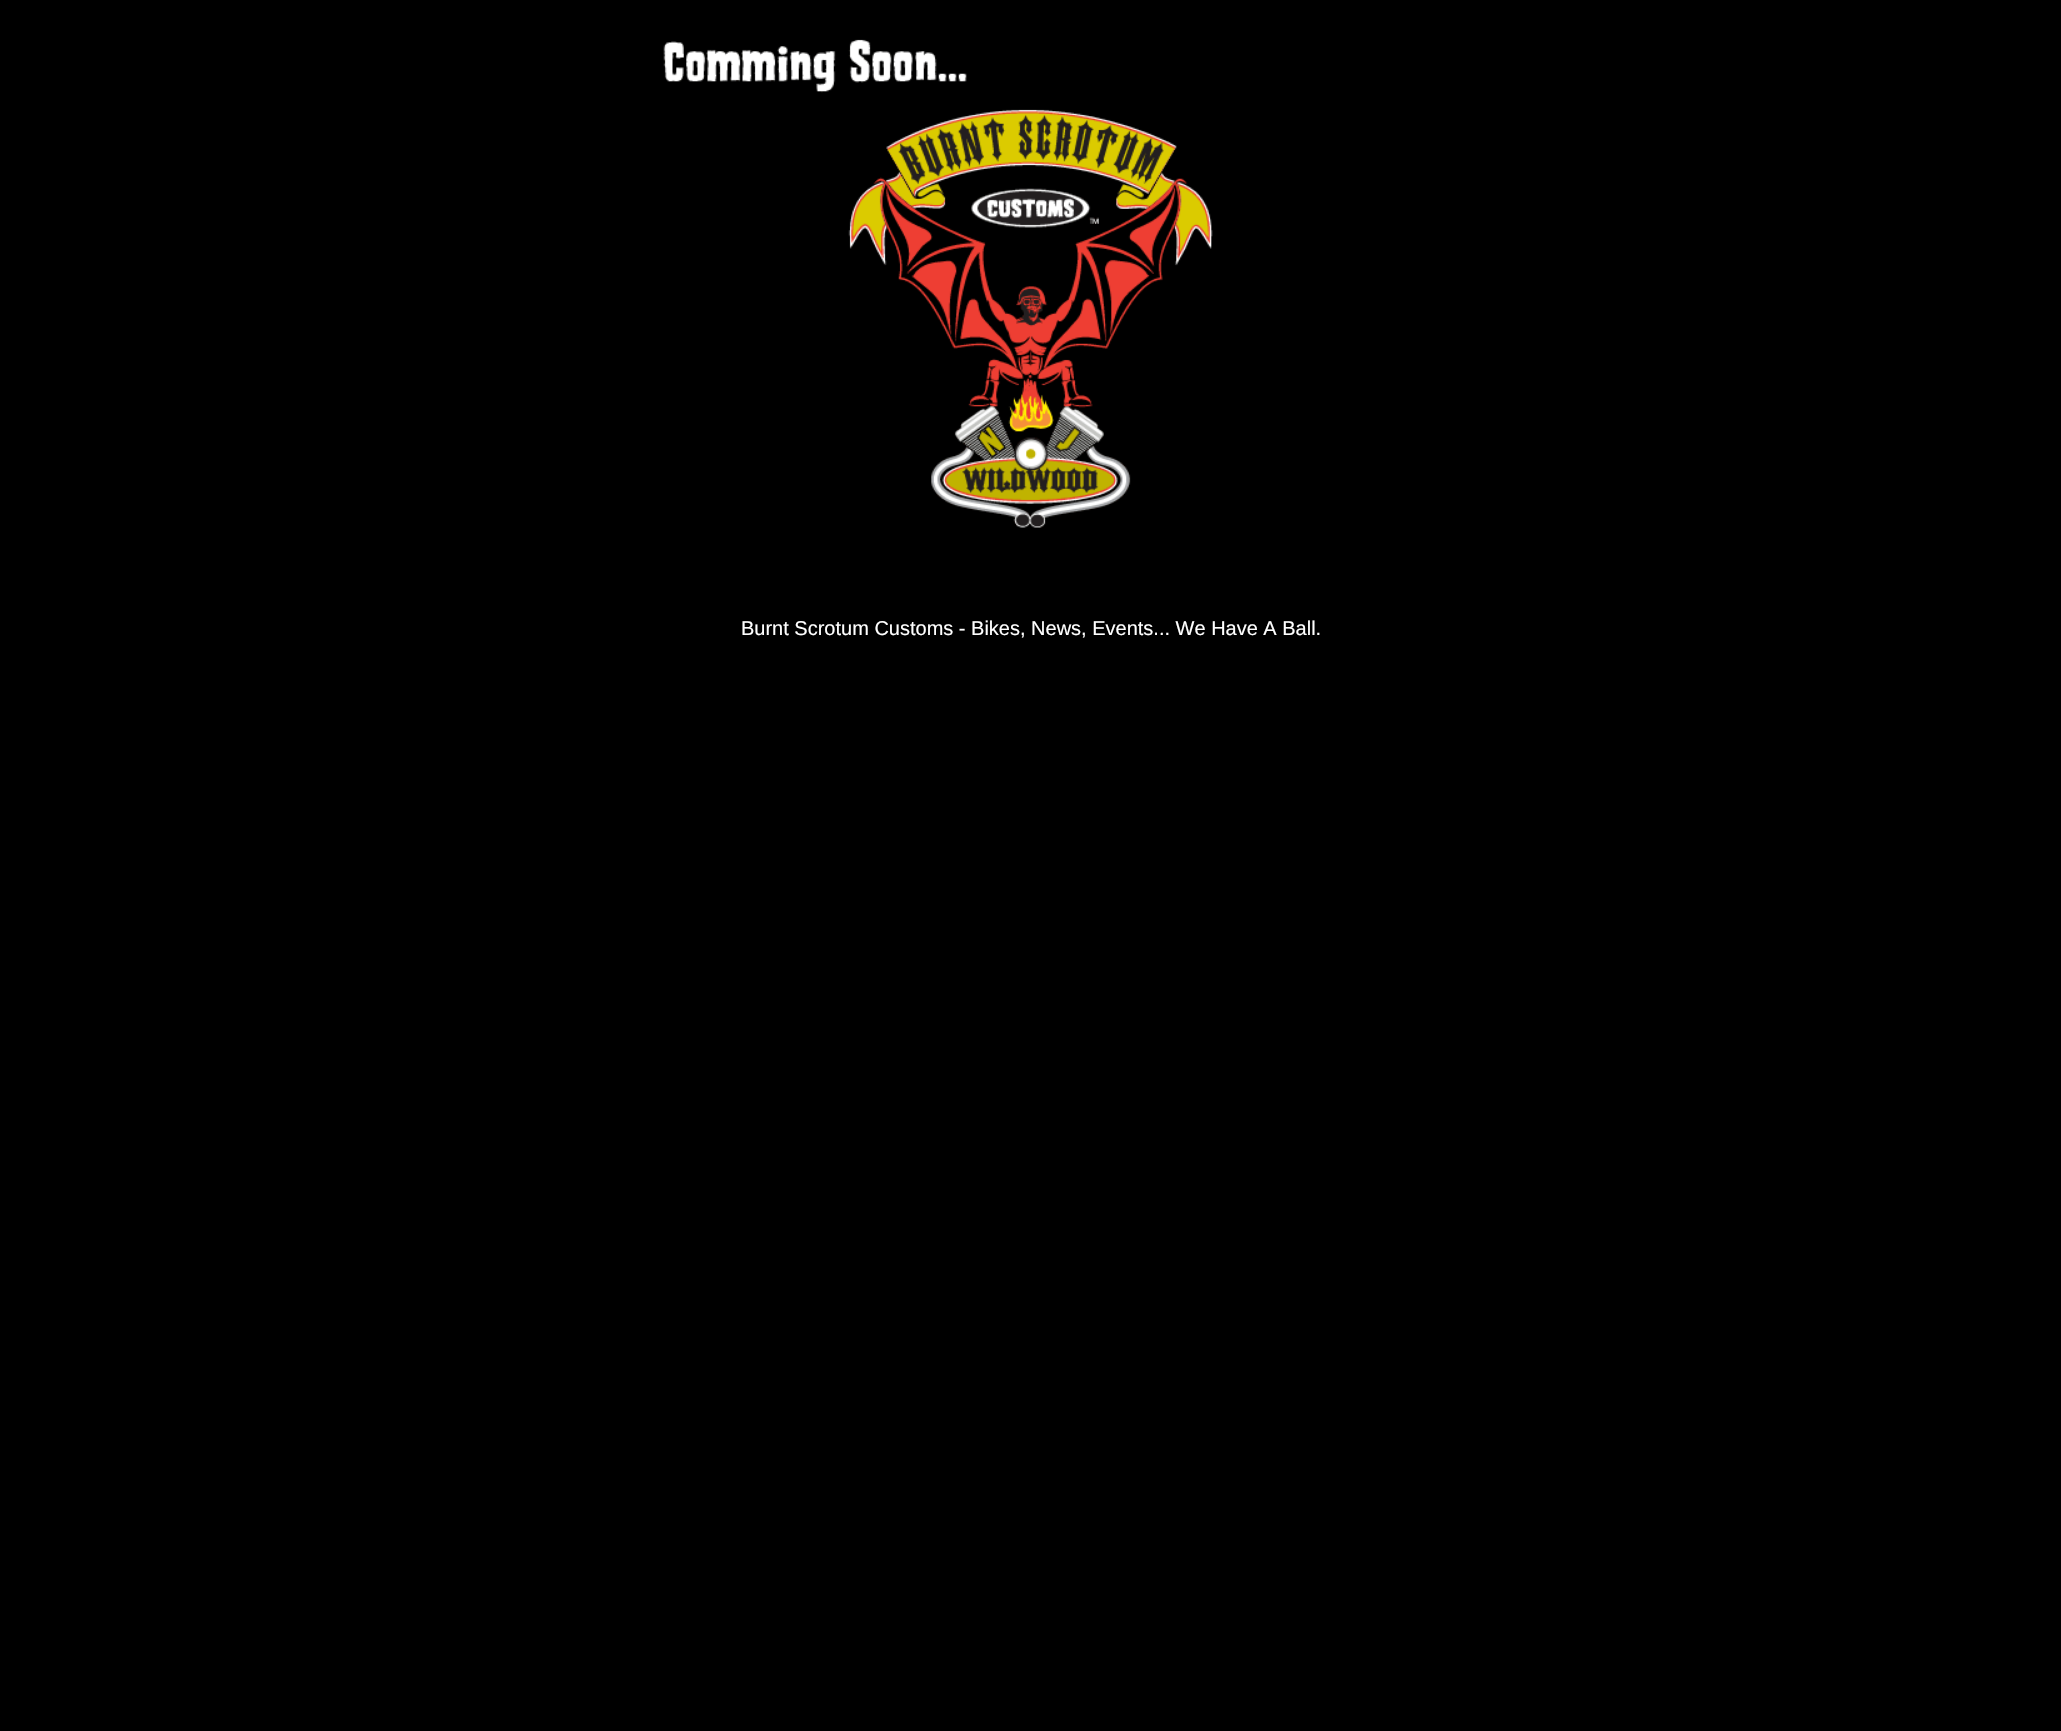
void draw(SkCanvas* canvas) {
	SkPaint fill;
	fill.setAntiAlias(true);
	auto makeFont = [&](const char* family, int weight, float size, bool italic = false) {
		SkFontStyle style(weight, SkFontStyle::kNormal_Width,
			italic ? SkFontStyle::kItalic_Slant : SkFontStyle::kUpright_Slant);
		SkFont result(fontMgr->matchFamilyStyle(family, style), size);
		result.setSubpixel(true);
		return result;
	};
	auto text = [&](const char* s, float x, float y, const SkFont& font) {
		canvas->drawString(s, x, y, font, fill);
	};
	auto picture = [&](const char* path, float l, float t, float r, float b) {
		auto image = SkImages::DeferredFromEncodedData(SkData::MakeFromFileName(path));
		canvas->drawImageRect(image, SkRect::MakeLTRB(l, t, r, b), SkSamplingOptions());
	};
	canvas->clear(0xFF000000);
	picture("image0.png", 663, 39, 1213, 528);
	auto font1 = makeFont("Liberation Sans", 400, 20);
	fill.setColor(0xFFFFFFFF);
	text("Burnt Scrotum Customs - Bikes, News, Events... We Have A Ball.", 741, 635, font1);
}
